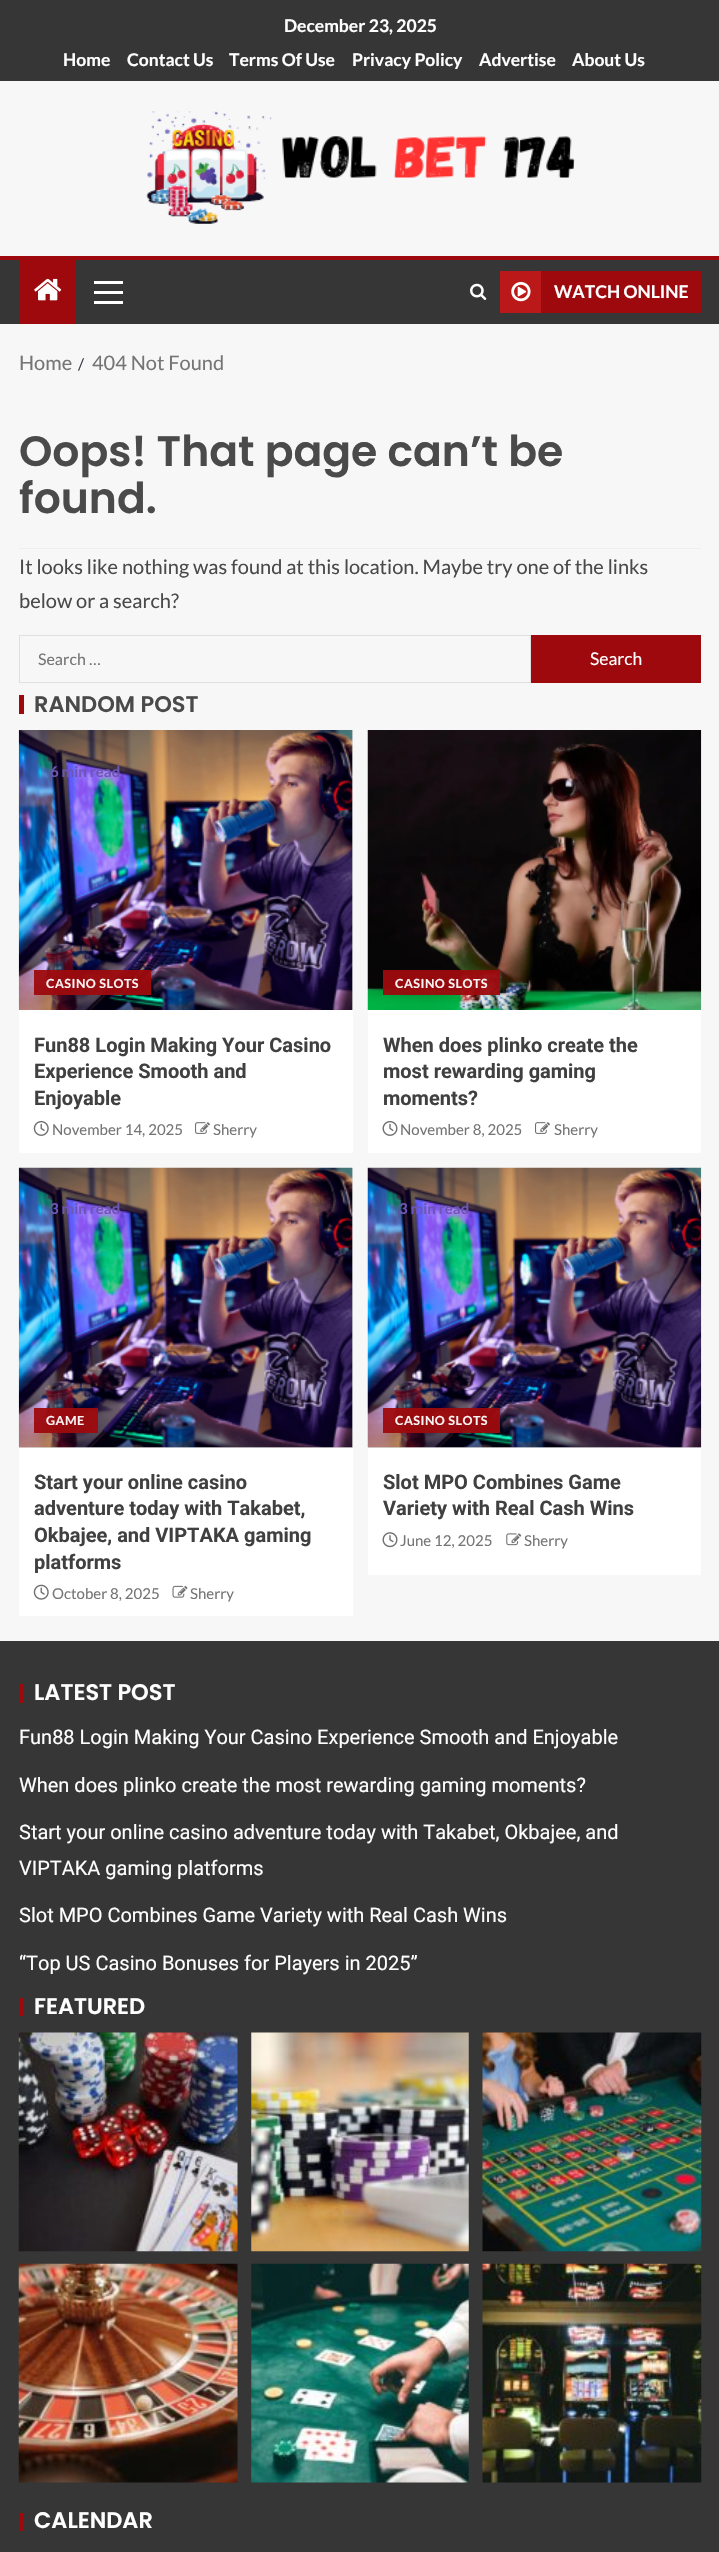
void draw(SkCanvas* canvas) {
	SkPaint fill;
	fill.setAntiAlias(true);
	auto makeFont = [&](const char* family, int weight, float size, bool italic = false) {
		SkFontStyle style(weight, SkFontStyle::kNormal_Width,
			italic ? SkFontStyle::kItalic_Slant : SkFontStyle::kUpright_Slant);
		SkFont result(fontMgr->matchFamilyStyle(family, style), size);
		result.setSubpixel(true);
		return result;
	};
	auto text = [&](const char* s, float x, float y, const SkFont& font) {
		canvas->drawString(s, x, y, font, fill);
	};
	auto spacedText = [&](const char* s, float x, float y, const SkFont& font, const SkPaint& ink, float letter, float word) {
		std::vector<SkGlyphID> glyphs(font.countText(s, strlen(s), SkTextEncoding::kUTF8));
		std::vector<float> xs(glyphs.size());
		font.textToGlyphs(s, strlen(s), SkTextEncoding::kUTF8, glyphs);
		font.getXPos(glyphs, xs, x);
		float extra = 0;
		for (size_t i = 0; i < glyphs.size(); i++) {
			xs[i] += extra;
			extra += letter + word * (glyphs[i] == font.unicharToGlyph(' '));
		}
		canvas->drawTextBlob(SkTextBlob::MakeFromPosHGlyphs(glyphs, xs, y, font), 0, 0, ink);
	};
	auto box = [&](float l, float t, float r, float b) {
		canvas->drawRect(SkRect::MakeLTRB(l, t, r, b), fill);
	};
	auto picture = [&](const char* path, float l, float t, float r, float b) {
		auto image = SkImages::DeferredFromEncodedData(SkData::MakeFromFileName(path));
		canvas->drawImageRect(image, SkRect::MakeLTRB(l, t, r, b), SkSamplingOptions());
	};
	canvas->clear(0xFFF7F7F7);
	fill.setColor(0xFF363636);
	box(0, 0, 719, 81);
	picture("image0.png", 146, 111, 575, 224);
	box(0, 260, 719, 324);
	fill.setColor(0xFF9D090D);
	box(0, 256, 719, 260);
	box(19, 260, 76, 324);
	picture("image1.png", 34, 278, 62, 301);
	fill.setColor(0xFFFFFFFF);
	box(94, 291, 123, 294);
	box(94, 281, 123, 284);
	box(94, 301, 123, 304);
	picture("image2.png", 470, 283, 487, 300);
	fill.setColor(0xFFBB1919);
	box(500, 271, 541, 313);
	picture("image3.png", 511, 282, 531, 302);
	fill.setColor(0xFF9D090D);
	box(541, 271, 701, 313);
	fill.setColor(0xFFEEEEEE);
	box(19, 548, 701, 549);
	fill.setStyle(SkPaint::kStroke_Style);
	fill.setStrokeWidth(1);
	fill.setColor(0xFFE0E0E0);
	canvas->drawRect(SkRect::MakeLTRB(19.5f, 635.5f, 530.5f, 682.5f), fill);
	fill.setStyle(SkPaint::kFill_Style);
	fill.setColor(0xFF9D090D);
	box(531, 635, 701, 683);
	box(19, 695, 24, 714);
	fill.setColor(0xFFDADADA);
	box(352, 730, 353, 1010);
	picture("image4.png", 18, 730, 353, 1010);
	fill.setColor(0xF29D090D);
	box(34, 970, 151, 995);
	fill.setColor(0xFFFFFFFF);
	box(19, 1010, 353, 1153);
	picture("image5.png", 33, 1120, 49, 1136);
	picture("image6.png", 195, 1122, 210, 1134);
	picture("image7.png", 367, 730, 702, 1010);
	fill.setColor(0xF29D090D);
	box(383, 970, 500, 995);
	fill.setColor(0xFFFFFFFF);
	box(368, 1010, 701, 1153);
	picture("image8.png", 382, 1121, 398, 1136);
	picture("image6.png", 535, 1122, 550, 1134);
	fill.setColor(0xFFDADADA);
	box(19, 1168, 353, 1448);
	picture("image9.png", 18, 1167, 353, 1448);
	fill.setColor(0xF29D090D);
	box(34, 1408, 98, 1433);
	fill.setColor(0xFFFFFFFF);
	box(19, 1448, 353, 1616);
	picture("image10.png", 33, 1584, 49, 1600);
	picture("image11.png", 172, 1585, 188, 1598);
	fill.setColor(0xFFDADADA);
	box(368, 1447, 701, 1448);
	picture("image12.png", 367, 1167, 702, 1448);
	fill.setColor(0xF29D090D);
	box(383, 1408, 500, 1433);
	fill.setColor(0xFFFFFFFF);
	box(368, 1448, 701, 1575);
	picture("image13.png", 382, 1532, 398, 1548);
	picture("image14.png", 506, 1533, 522, 1546);
	fill.setColor(0xFF363636);
	box(0, 1641, 719, 2552);
	fill.setColor(0xFF9D090D);
	box(19, 1684, 24, 1703);
	box(19, 1998, 24, 2016);
	picture("image15.png", 18, 2032, 238, 2252);
	picture("image16.png", 251, 2032, 469, 2252);
	picture("image17.png", 482, 2032, 702, 2252);
	picture("image18.png", 18, 2263, 238, 2483);
	picture("image19.png", 251, 2263, 469, 2483);
	picture("image20.png", 482, 2263, 702, 2483);
	box(19, 2513, 24, 2531);
	auto font1 = makeFont("Lato", 700, 17.5f);
	fill.setColor(0xFFFFFFFF);
	text("December 23, 2025", 284, 32, font1);
	text("Home", 63, 66, font1);
	text("Contact Us", 127, 66, font1);
	text("Terms Of Use", 229, 66, font1);
	text("Privacy Policy", 352, 66, font1);
	text("Advertise", 479, 66, font1);
	text("About Us", 572, 66, font1);
	text("WATCH ONLINE", 554, 298, font1);
	auto font2 = makeFont("Lato", 400, 20);
	fill.setColor(0xFF757575);
	text("Home", 19, 370, font2);
	auto font3 = makeFont("Lato", 400, 16);
	fill.setColor(0xFF393E46);
	text("/", 78, 370, font3);
	fill.setColor(0xFF757575);
	text("404 Not Found", 92, 370, font2);
	auto font4 = makeFont("Poppins", 600, 42.5f);
	fill.setColor(0xFF4A4A4A);
	text("Oops! That page can’t be", 19, 466, font4);
	text("found.", 19, 513, font4);
	text("It looks like nothing was found at this location. Maybe try one of the links", 19, 574, font2);
	text("below or a search?", 19, 608, font2);
	fill.setColor(0xFF757575);
	text("Search …", 38, 665, font3);
	auto font5 = makeFont("Lato", 400, 17.5f);
	fill.setColor(0xFFFFFFFF);
	text("Search", 590, 665, font5);
	auto font6 = makeFont("Poppins", 600, 22.5f);
	fill.setColor(0xFF4A4A4A);
	text("RANDOM POST", 34, 712, font6);
	auto font7 = makeFont("Lato", 700, 15);
	fill.setColor(0xFF6D56B6);
	text("6 min read", 50, 777, font7);
	auto font8 = makeFont("Lato", 700, 12.5f);
	fill.setColor(0xFFFAF3F3);
	spacedText("CASINO SLOTS", 46, 988, font8, fill, 0.5f, 0);
	auto font9 = makeFont("Roboto", 700, 20);
	fill.setColor(0xFF404040);
	text("Fun88 Login Making Your Casino", 34, 1052, font9);
	text("Experience Smooth and", 34, 1078, font9);
	text("Enjoyable", 34, 1105, font9);
	auto font10 = makeFont("Lato", 400, 15);
	fill.setColor(0xFF757575);
	text("November 14, 2025", 52, 1135, font10);
	text("Sherry", 213, 1135, font10);
	fill.setColor(0xFFFAF3F3);
	spacedText("CASINO SLOTS", 395, 988, font8, fill, 0.5f, 0);
	fill.setColor(0xFF404040);
	text("When does plinko create the", 383, 1052, font9);
	text("most rewarding gaming", 383, 1078, font9);
	text("moments?", 383, 1105, font9);
	fill.setColor(0xFF757575);
	text("November 8, 2025", 400, 1135, font10);
	text("Sherry", 554, 1135, font10);
	fill.setColor(0xFF6D56B6);
	text("3 min read", 50, 1214, font7);
	fill.setColor(0xFFFAF3F3);
	spacedText("GAME", 46, 1425, font8, fill, 0.5f, 0);
	fill.setColor(0xFF404040);
	text("Start your online casino", 34, 1489, font9);
	text("adventure today with Takabet,", 34, 1515, font9);
	text("Okbajee, and VIPTAKA gaming", 34, 1542, font9);
	text("platforms", 34, 1569, font9);
	fill.setColor(0xFF757575);
	text("October 8, 2025", 52, 1599, font10);
	text("Sherry", 190, 1599, font10);
	fill.setColor(0xFF6D56B6);
	text("3 min read", 399, 1214, font7);
	fill.setColor(0xFFFAF3F3);
	spacedText("CASINO SLOTS", 395, 1425, font8, fill, 0.5f, 0);
	fill.setColor(0xFF404040);
	text("Slot MPO Combines Game", 383, 1489, font9);
	text("Variety with Real Cash Wins", 383, 1515, font9);
	fill.setColor(0xFF757575);
	text("June 12, 2025", 400, 1546, font10);
	text("Sherry", 524, 1546, font10);
	fill.setColor(0xFFFFFFFF);
	text("LATEST POST", 34, 1700, font6);
	auto font11 = makeFont("Roboto", 400, 20);
	text("Fun88 Login Making Your Casino Experience Smooth and Enjoyable", 19, 1744, font11);
	text("When does plinko create the most rewarding gaming moments?", 19, 1792, font11);
	text("Start your online casino adventure today with Takabet, Okbajee, and", 19, 1839, font11);
	text("VIPTAKA gaming platforms", 19, 1875, font11);
	text("Slot MPO Combines Game Variety with Real Cash Wins", 19, 1922, font11);
	text("“Top US Casino Bonuses for Players in 2025”", 19, 1970, font11);
	text("FEATURED", 34, 2014, font6);
	text("CALENDAR", 34, 2528, font6);
}
